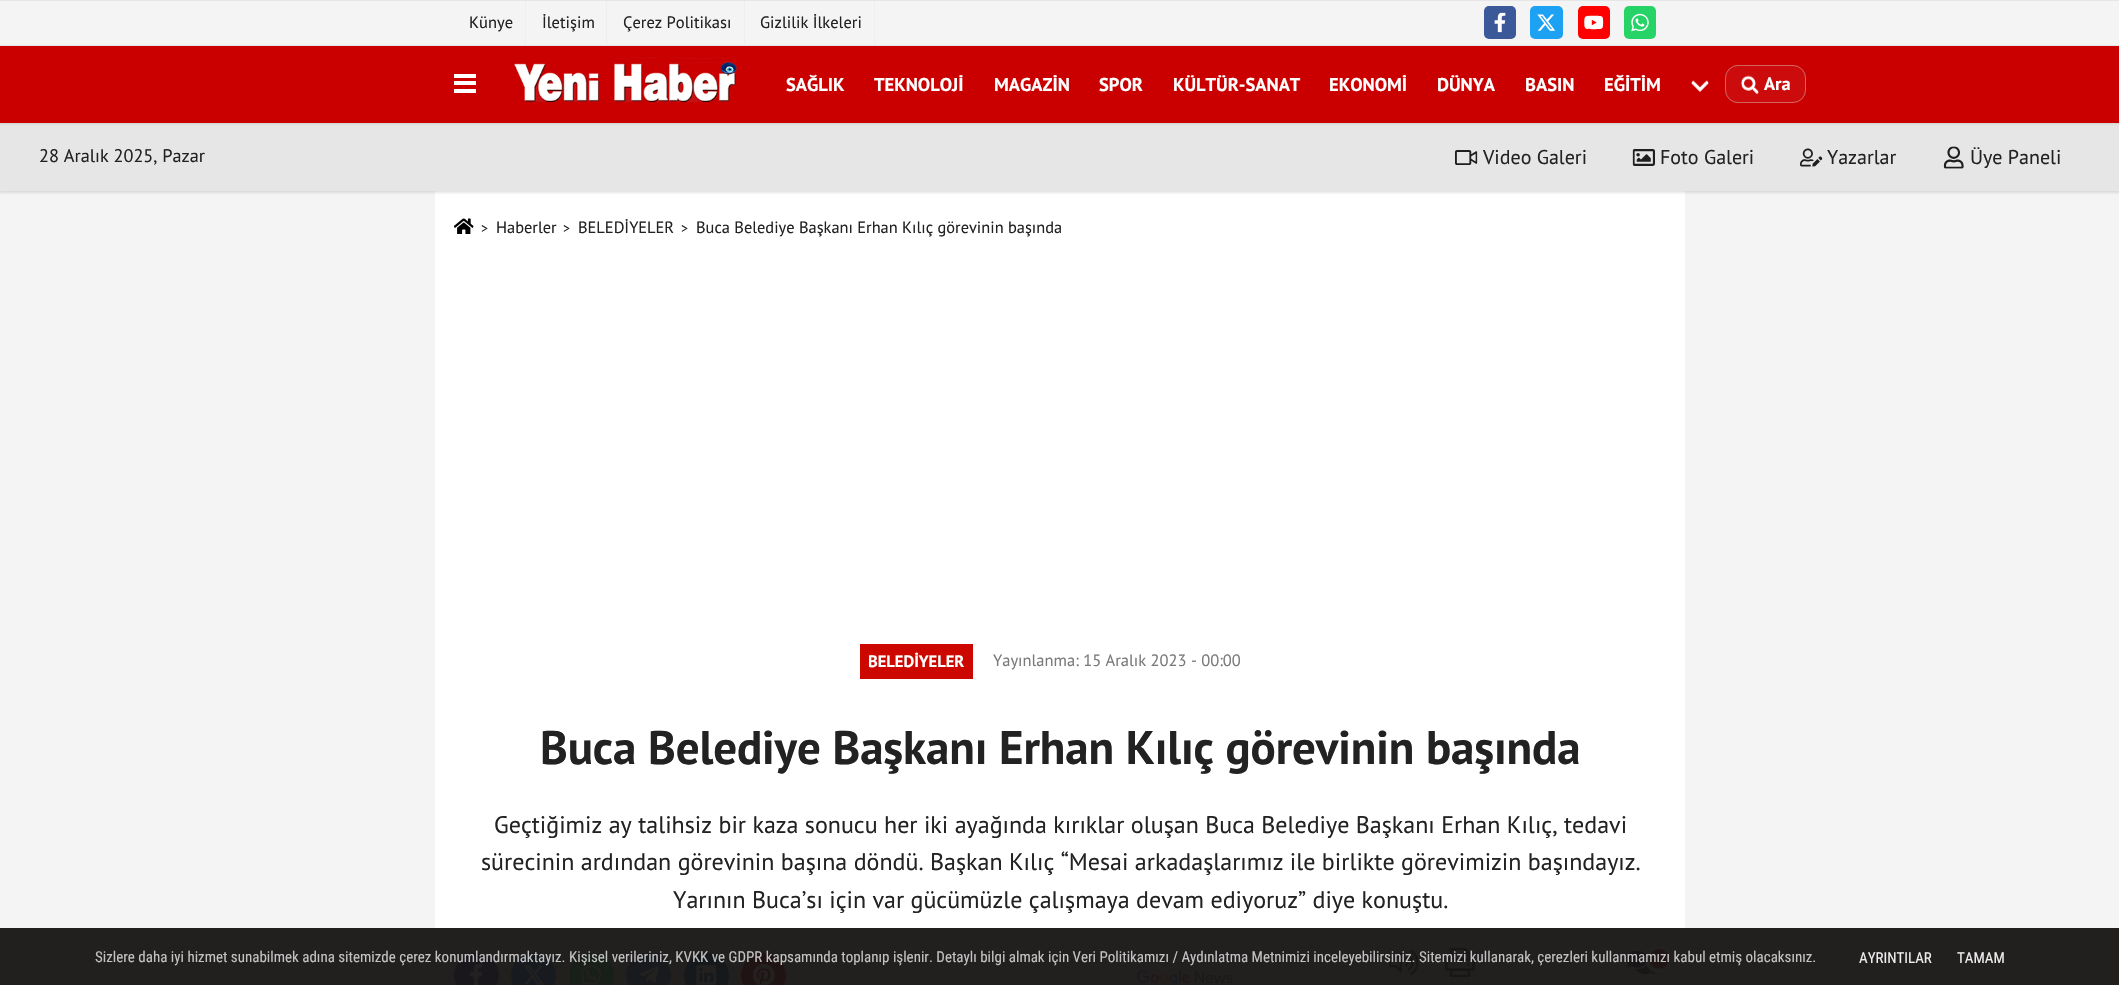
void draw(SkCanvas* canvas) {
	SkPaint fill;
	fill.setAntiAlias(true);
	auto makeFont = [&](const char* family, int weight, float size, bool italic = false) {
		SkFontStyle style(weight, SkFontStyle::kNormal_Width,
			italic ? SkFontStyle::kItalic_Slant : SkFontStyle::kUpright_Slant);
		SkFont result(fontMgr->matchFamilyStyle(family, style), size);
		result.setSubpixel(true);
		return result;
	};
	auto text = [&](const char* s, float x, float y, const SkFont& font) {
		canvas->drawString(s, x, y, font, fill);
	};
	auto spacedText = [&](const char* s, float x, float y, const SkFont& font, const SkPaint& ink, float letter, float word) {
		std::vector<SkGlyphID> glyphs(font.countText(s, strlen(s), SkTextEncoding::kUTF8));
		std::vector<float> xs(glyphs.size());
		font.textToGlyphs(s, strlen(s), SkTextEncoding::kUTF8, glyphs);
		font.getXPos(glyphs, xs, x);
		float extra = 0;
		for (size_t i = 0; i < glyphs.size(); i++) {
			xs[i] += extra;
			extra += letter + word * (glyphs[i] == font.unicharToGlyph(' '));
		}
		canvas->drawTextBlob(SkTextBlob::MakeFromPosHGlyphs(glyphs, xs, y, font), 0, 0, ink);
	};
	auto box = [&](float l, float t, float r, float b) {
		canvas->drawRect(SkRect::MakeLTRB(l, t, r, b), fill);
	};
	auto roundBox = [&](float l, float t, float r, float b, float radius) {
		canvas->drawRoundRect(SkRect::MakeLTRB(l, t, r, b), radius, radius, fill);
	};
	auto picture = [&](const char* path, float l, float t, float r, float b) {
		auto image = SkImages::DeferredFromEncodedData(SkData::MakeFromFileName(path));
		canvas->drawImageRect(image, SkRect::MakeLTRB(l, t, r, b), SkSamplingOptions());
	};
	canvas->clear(0xFFF4F4F4);
	fill.setColor(0xFF221F1F);
	box(0, 928, 2119, 985);
	fill.setColor(0xFFE6E6E6);
	box(0, 0, 2119, 1);
	fill.setColor(0xFFEEEEEE);
	box(525, 1, 526, 45);
	box(606, 1, 607, 45);
	box(744, 1, 745, 45);
	box(874, 1, 875, 45);
	fill.setColor(0xFF3B5998);
	roundBox(1484, 6, 1516, 39, 5);
	picture("image0.png", 1494, 12, 1506, 33);
	fill.setColor(0xFF1DA1F2);
	roundBox(1530, 6, 1563, 39, 5);
	picture("image1.png", 1537, 14, 1556, 31);
	fill.setColor(0xFFFF0000);
	roundBox(1578, 6, 1610, 39, 5);
	picture("image2.png", 1584, 15, 1604, 30);
	fill.setColor(0xFF25D366);
	roundBox(1624, 6, 1656, 39, 5);
	picture("image3.png", 1631, 13, 1649, 32);
	fill.setColor(0xFFE6E6E6);
	box(0, 45, 2119, 46);
	fill.setColor(0xFFFFFFFF);
	box(435, 191, 1685, 928);
	fill.setColor(0x1A000000);
	fill.setMaskFilter(SkMaskFilter::MakeBlur(kNormal_SkBlurStyle, 1));
	canvas->drawRect(SkRect::MakeLTRB(0, 124, 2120, 193), fill);
	fill.setMaskFilter(nullptr);
	fill.setColor(0xFFE6E6E6);
	box(0, 123, 2119, 191);
	fill.setColor(0x1A000000);
	fill.setMaskFilter(SkMaskFilter::MakeBlur(kNormal_SkBlurStyle, 1));
	canvas->drawRect(SkRect::MakeLTRB(0, 48, 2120, 124), fill);
	fill.setMaskFilter(nullptr);
	fill.setColor(0xFFCA0000);
	box(0, 46, 2119, 123);
	fill.setColor(0xFFFFFFFF);
	box(454, 74, 476, 78);
	box(454, 81, 476, 85);
	box(454, 89, 476, 93);
	picture("image4.png", 514, 57, 737, 102);
	picture("image5.png", 1691, 80, 1709, 92);
	fill.setColor(0xFFCC0C0C);
	roundBox(1725, 65, 1806, 103, 13);
	fill.setStyle(SkPaint::kStroke_Style);
	fill.setStrokeWidth(1);
	fill.setColor(0x6BDDDDDD);
	canvas->drawRoundRect(SkRect::MakeLTRB(1725.5f, 65.5f, 1805.5f, 102.5f), 12.5f, 12.5f, fill);
	picture("image6.png", 1741, 75, 1759, 94);
	picture("image7.png", 1455, 150, 1478, 165);
	picture("image8.png", 1632, 149, 1655, 166);
	picture("image9.png", 1800, 148, 1823, 167);
	picture("image10.png", 1943, 146, 1964, 169);
	picture("image11.png", 454, 218, 474, 234);
	fill.setStyle(SkPaint::kFill_Style);
	fill.setColor(0xFFCC0700);
	box(860, 644, 973, 679);
	fill.setColor(0xFF19171B);
	canvas->drawCircle(476.5f, 975.5f, 22.5f, fill);
	picture("image12.png", 470, 964, 483, 985);
	fill.setColor(0xFF171B1F);
	canvas->drawCircle(533.5f, 975.5f, 22.5f, fill);
	picture("image13.png", 523, 965, 544, 985);
	fill.setColor(0xFF181E18);
	canvas->drawCircle(591.5f, 975.5f, 22.5f, fill);
	picture("image14.png", 581, 965, 602, 985);
	fill.setColor(0xFF181A1D);
	canvas->drawCircle(648.5f, 975.5f, 22.5f, fill);
	picture("image15.png", 639, 966, 659, 983);
	fill.setColor(0xFF16191C);
	canvas->drawCircle(706.5f, 975.5f, 22.5f, fill);
	picture("image16.png", 696, 965, 717, 985);
	fill.setColor(0xFF1F1314);
	canvas->drawCircle(763.5f, 975.5f, 22.5f, fill);
	picture("image17.png", 752, 964, 775, 985);
	picture("image18.png", 1136, 970, 1233, 985);
	picture("image19.png", 1389, 950, 1419, 975);
	picture("image20.png", 1445, 947, 1475, 978);
	picture("image21.png", 1626, 950, 1656, 975);
	fill.setColor(0xFF201515);
	canvas->drawCircle(1659, 959, 12, fill);
	fill.setStyle(SkPaint::kStroke_Style);
	fill.setStrokeWidth(4);
	fill.setColor(0xFF232020);
	canvas->drawCircle(1659, 959, 12, fill);
	auto font1 = makeFont("PT Sans", 400, 16.5f);
	fill.setStyle(SkPaint::kFill_Style);
	fill.setColor(0xFF222222);
	text("Künye", 469, 28, font1);
	text("İletişim", 542, 28, font1);
	text("Çerez Politikası", 623, 28, font1);
	text("Gizlilik İlkeleri", 760, 28, font1);
	auto font2 = makeFont("PT Sans", 700, 18.5f);
	fill.setColor(0xFFFFFFFF);
	text("SAĞLIK", 786, 91, font2);
	text("TEKNOLOJİ", 874, 91, font2);
	text("MAGAZİN", 994, 91, font2);
	text("SPOR", 1099, 91, font2);
	text("KÜLTÜR-SANAT", 1173, 91, font2);
	text("EKONOMİ", 1329, 91, font2);
	text("DÜNYA", 1437, 91, font2);
	text("BASIN", 1525, 91, font2);
	text("EĞİTİM", 1604, 91, font2);
	auto font3 = makeFont("PT Sans", 700, 18.25f);
	text("Ara", 1764, 90, font3);
	auto font4 = makeFont("PT Sans", 400, 18.25f);
	fill.setColor(0xFF222222);
	text("28 Aralık 2025, Pazar", 39, 162, font4);
	auto font5 = makeFont("PT Sans", 400, 20);
	text("Video Galeri", 1483, 164, font5);
	text("Foto Galeri", 1660, 164, font5);
	text("Yazarlar", 1827, 164, font5);
	text("Üye Paneli", 1970, 164, font5);
	auto font6 = makeFont("PT Sans", 400, 14);
	text(">", 481, 233, font6);
	auto font7 = makeFont("PT Sans", 400, 16.4f);
	text("Haberler", 496, 233, font7);
	text(">", 563, 233, font6);
	text("BELEDİYELER", 578, 233, font7);
	text(">", 681, 233, font6);
	text("Buca Belediye Başkanı Erhan Kılıç görevinin başında", 696, 233, font7);
	auto font8 = makeFont("PT Sans", 700, 16.5f);
	fill.setColor(0xFFFFFFFF);
	text("BELEDİYELER", 868, 667, font8);
	fill.setColor(0xFF7A7A7A);
	text("Yayınlanma: 15 Aralık 2023 - 00:00", 993, 666, font1);
	auto font9 = makeFont("PT Sans", 700, 47);
	fill.setColor(0xFF222222);
	spacedText("Buca Belediye Başkanı Erhan Kılıç görevinin başında", 540, 764, font9, fill, -0.12f, 0);
	auto font10 = makeFont("PT Sans", 400, 24);
	text("Geçtiğimiz ay talihsiz bir kaza sonucu her iki ayağında kırıklar oluşan Buca Belediye Başkanı Erhan Kılıç, tedavi", 494, 833, font10);
	text("sürecinin ardından görevinin başına döndü. Başkan Kılıç “Mesai arkadaşlarımız ile birlikte görevimizin başındayız.", 481, 870, font10);
	text("Yarının Buca’sı için var gücümüzle çalışmaya devam ediyoruz” diye konuştu.", 673, 908, font10);
	auto font11 = makeFont("Roboto Condensed", 400, 15);
	fill.setColor(0xFFC3C3C3);
	text("Sizlere daha iyi hizmet sunabilmek adına sitemizde çerez konumlandırmaktayız. Kişisel verileriniz, KVKK ve GDPR kapsamında toplanıp işlenir. Detaylı bilgi almak için Veri Politikamızı / Aydınlatma Metnimizi inceleyebilirsiniz. Sitemizi kullanarak, çerezleri kullanmamızı kabul etmiş olacaksınız.", 95, 962, font11);
	fill.setColor(0xFFEEEEEE);
	text("AYRINTILAR", 1859, 963, font11);
	text("TAMAM", 1957, 963, font11);
}
